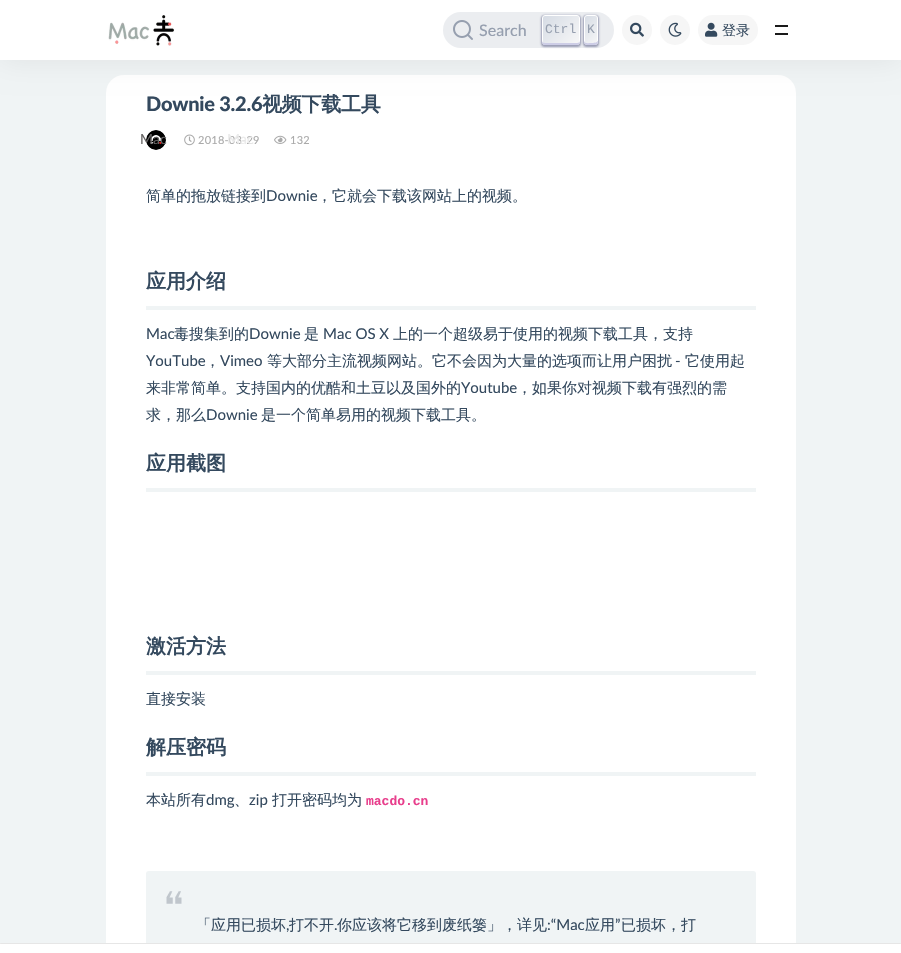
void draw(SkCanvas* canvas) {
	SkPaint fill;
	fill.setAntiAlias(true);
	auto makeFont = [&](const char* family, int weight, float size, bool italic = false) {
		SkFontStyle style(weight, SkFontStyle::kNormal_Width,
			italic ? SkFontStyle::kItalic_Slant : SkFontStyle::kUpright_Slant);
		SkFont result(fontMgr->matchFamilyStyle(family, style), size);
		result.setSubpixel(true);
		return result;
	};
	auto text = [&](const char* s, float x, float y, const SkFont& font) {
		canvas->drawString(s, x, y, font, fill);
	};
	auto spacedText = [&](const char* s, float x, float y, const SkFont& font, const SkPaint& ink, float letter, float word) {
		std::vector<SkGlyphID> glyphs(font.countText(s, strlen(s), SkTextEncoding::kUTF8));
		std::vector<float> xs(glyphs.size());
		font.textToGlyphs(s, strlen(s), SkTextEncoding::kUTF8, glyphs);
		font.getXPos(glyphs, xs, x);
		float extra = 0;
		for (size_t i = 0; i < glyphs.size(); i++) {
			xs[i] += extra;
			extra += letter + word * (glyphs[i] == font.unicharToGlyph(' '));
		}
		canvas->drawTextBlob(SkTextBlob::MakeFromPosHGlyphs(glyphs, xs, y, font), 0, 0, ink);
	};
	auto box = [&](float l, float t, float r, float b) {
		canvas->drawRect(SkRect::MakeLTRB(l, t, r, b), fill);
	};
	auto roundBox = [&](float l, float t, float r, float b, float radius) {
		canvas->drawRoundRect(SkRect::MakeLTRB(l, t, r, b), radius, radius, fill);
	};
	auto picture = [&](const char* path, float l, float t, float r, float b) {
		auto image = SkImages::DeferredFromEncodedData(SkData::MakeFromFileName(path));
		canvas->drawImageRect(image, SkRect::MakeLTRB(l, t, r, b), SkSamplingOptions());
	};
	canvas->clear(0xFFF0F4F5);
	fill.setColor(0xFFFFFFFF);
	roundBox(106, 75, 796, 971, 18);
	fill.setColor(0x12000000);
	fill.setMaskFilter(SkMaskFilter::MakeBlur(kNormal_SkBlurStyle, 15));
	canvas->drawRect(SkRect::MakeLTRB(0, 0, 901, 60), fill);
	fill.setMaskFilter(nullptr);
	fill.setColor(0xFFFFFFFF);
	box(0, 0, 901, 60);
	picture("image0.png", 108, 15, 174, 46);
	fill.setColor(0xFFEBEDF0);
	roundBox(443, 12, 614, 48, 18);
	picture("image1.png", 453, 20, 473, 40);
	fill.setColor(0x661E235A);
	fill.setMaskFilter(SkMaskFilter::MakeBlur(kNormal_SkBlurStyle, 1));
	canvas->drawRoundRect(SkRect::MakeLTRB(541, 15, 581, 47), 4, 4, fill);
	fill.setMaskFilter(nullptr);
	{
		const SkColor colors[] = {0xFFD5DBE4, 0xFFF8F8F8};
		const float stops[] = {0, 1};
		const SkPoint ends[] = {{544, 13}, {578, 47}};
		fill.setShader(SkGradientShader::MakeLinear(ends, colors, stops, 2, SkTileMode::kClamp));
		fill.setAlpha(255);
	}
	canvas->drawRoundRect(SkRect::MakeLTRB(542.5f, 15.5f, 579.5f, 44.5f), 2.5f, 2.5f, fill);
	fill.setStyle(SkPaint::kStroke_Style);
	fill.setStrokeWidth(1);
	fill.setShader(nullptr);
	fill.setColor(0xFFFFFFFF);
	canvas->drawRoundRect(SkRect::MakeLTRB(542.5f, 15.5f, 579.5f, 44.5f), 2.5f, 2.5f, fill);
	fill.setStyle(SkPaint::kFill_Style);
	fill.setColor(0xFFCDCDE6);
	canvas->drawPath(SkPathBuilder().moveTo(542, 40).cubicTo(542, 46, 544.5f, 45, 550.5f, 45).lineTo(571.5f, 45).cubicTo(577.5f, 45, 580, 46, 580, 40).cubicTo(580, 42, 579, 43, 577, 43).lineTo(545, 43).cubicTo(543, 43, 542, 42, 542, 40).close().detach(), fill);
	fill.setColor(0x661E235A);
	fill.setMaskFilter(SkMaskFilter::MakeBlur(kNormal_SkBlurStyle, 1));
	canvas->drawRoundRect(SkRect::MakeLTRB(583, 15, 599, 47), 4, 4, fill);
	fill.setMaskFilter(nullptr);
	{
		const SkColor colors[] = {0xFFD5DBE4, 0xFFF8F8F8};
		const float stops[] = {0, 1};
		const SkPoint ends[] = {{580, 19}, {602, 41}};
		fill.setShader(SkGradientShader::MakeLinear(ends, colors, stops, 2, SkTileMode::kClamp));
		fill.setAlpha(255);
	}
	canvas->drawRoundRect(SkRect::MakeLTRB(584.5f, 15.5f, 597.5f, 44.5f), 2.5f, 2.5f, fill);
	fill.setStyle(SkPaint::kStroke_Style);
	fill.setShader(nullptr);
	fill.setColor(0xFFFFFFFF);
	canvas->drawRoundRect(SkRect::MakeLTRB(584.5f, 15.5f, 597.5f, 44.5f), 2.5f, 2.5f, fill);
	fill.setStyle(SkPaint::kFill_Style);
	fill.setColor(0xFFCDCDE6);
	canvas->drawPath(SkPathBuilder().moveTo(584, 40.5f).cubicTo(584, 45.5f, 586.5f, 45, 591, 45).cubicTo(595.5f, 45, 598, 45.5f, 598, 40.5f).cubicTo(597, 43, 593.5f, 43, 591, 43).cubicTo(588.5f, 43, 584.5f, 44, 584, 40.5f).close().detach(), fill);
	fill.setColor(0xFFF6F6F6);
	canvas->drawCircle(637, 30, 15, fill);
	picture("image2.png", 630, 22, 644, 37);
	canvas->drawCircle(675, 30, 15, fill);
	picture("image3.png", 668, 22, 682, 37);
	roundBox(698, 15, 758, 45, 15);
	picture("image4.png", 705, 22, 718, 37);
	fill.setColor(0xFF1A1A1A);
	box(775, 25, 788, 27);
	box(775, 33, 788, 35);
	picture("image5.png", 146, 130, 166, 150);
	picture("image6.png", 184, 134, 195, 146);
	picture("image7.png", 274, 135, 287, 144);
	fill.setColor(0xFFF0F4F5);
	box(146, 306, 756, 310);
	box(146, 488, 756, 492);
	box(146, 671, 756, 675);
	box(146, 772, 756, 776);
	roundBox(146, 871, 756, 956, 3);
	picture("image8.png", 166, 891, 182, 904);
	fill.setColor(0xFFFFFFFF);
	box(0, 943, 901, 953);
	fill.setColor(0xFFE6E6E6);
	roundBox(0, 943, 901, 944, 0.5f);
	auto font1 = makeFont("Lato", 500, 16);
	fill.setColor(0xFF969FAF);
	text("Search", 479, 36, font1);
	auto font2 = makeFont("Liberation Mono", 400, 13);
	text("Ctrl", 545, 33, font2);
	text("K", 587, 33, font2);
	auto font3 = makeFont("WenQuanYi Zen Hei", 500, 14);
	fill.setColor(0xFF34495E);
	text("登录", 722, 35, font3);
	auto font4 = makeFont("Lato", 900, 20);
	spacedText("Downie 3.2.6", 146, 111, font4, fill, -0.25f, 0);
	auto font5 = makeFont("WenQuanYi Zen Hei", 700, 20);
	spacedText("视频下载工具", 262, 111, font5, fill, -0.25f, 0);
	auto font6 = makeFont("Lato", 400, 11);
	fill.setColor(0xFFAAAAAA);
	spacedText("2018-03-29", 198, 144, font6, fill, 0.25f, 0);
	spacedText("132", 290, 144, font6, fill, 0.25f, 0);
	auto font7 = makeFont("WenQuanYi Zen Hei", 500, 15);
	fill.setColor(0xFF34495E);
	text("简单的拖放链接到", 146, 201, font7);
	auto font8 = makeFont("Lato", 400, 15);
	text("Downie", 266, 201, font8);
	text("，它就会下载该网站上的视频。", 317, 201, font7);
	text("应用介绍", 146, 288, font5);
	text("Mac", 146, 339, font8);
	text("毒搜集到的", 174, 339, font7);
	text("Downie", 249, 339, font8);
	text("是", 304, 339, font7);
	text("Mac OS X", 323, 339, font8);
	text("上的一个超级易于使用的视频下载工具，支持", 393, 339, font7);
	text("YouTube", 146, 366, font8);
	text("Vimeo", 220, 366, font8);
	text("等大部分主流视频网站。它不会因为大量的选项而让用户困扰", 267, 366, font7);
	text("-", 675, 366, font8);
	text("它使用起", 685, 366, font7);
	text("，", 205, 366, font7);
	text("来非常简单。支持国内的优酷和土豆以及国外的", 146, 393, font7);
	text("Youtube", 461, 393, font8);
	text("，如果你对视频下载有强烈的需", 517, 393, font7);
	text("求，那么", 146, 420, font7);
	text("Downie", 206, 420, font8);
	text("是一个简单易用的视频下载工具。", 261, 420, font7);
	text("应用截图", 146, 470, font5);
	text("激活方法", 146, 653, font5);
	text("直接安装", 146, 704, font7);
	text("解压密码", 146, 754, font5);
	text("本站所有", 146, 805, font7);
	text("dmg", 206, 805, font8);
	text("、", 234, 805, font7);
	text("zip", 249, 805, font8);
	text("打开密码均为", 272, 805, font7);
	auto font9 = makeFont("Liberation Mono", 700, 13);
	fill.setColor(0xFFE83E8C);
	text("macdo.cn", 366, 805, font9);
	fill.setColor(0xFF34495E);
	text("「应用已损坏", 196, 930, font7);
	text("你应该将它移到废纸篓」，详见", 337, 930, font7);
	text(":“Mac", 547, 930, font8);
	text("应用", 585, 930, font7);
	text("”", 615, 930, font8);
	text("已损坏，打", 621, 930, font7);
	text(",", 286, 930, font8);
	text("打不开", 289, 930, font7);
	text(".", 334, 930, font8);
	auto font10 = makeFont("Lato", 400, 14);
	fill.setColor(0xFF666464);
	text("Mac", 140, 144, font10);
	fill.setColor(0xFFEBEBEB);
	text("Mac", 227, 144, font10);
}
